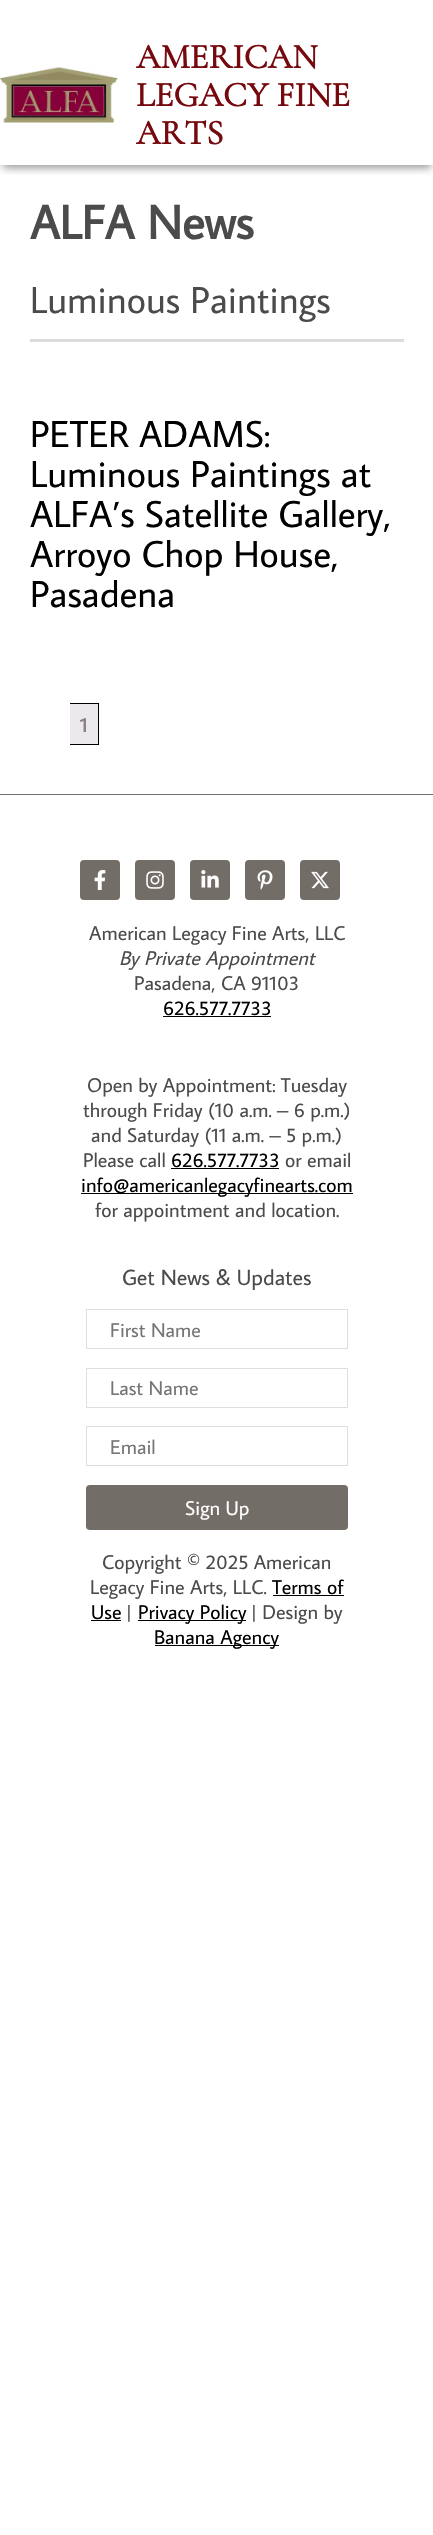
void draw(SkCanvas* canvas) {
	SkPaint fill;
	fill.setAntiAlias(true);
	auto makeFont = [&](const char* family, int weight, float size, bool italic = false) {
		SkFontStyle style(weight, SkFontStyle::kNormal_Width,
			italic ? SkFontStyle::kItalic_Slant : SkFontStyle::kUpright_Slant);
		SkFont result(fontMgr->matchFamilyStyle(family, style), size);
		result.setSubpixel(true);
		return result;
	};
	auto text = [&](const char* s, float x, float y, const SkFont& font) {
		canvas->drawString(s, x, y, font, fill);
	};
	auto box = [&](float l, float t, float r, float b) {
		canvas->drawRect(SkRect::MakeLTRB(l, t, r, b), fill);
	};
	auto roundBox = [&](float l, float t, float r, float b, float radius) {
		canvas->drawRoundRect(SkRect::MakeLTRB(l, t, r, b), radius, radius, fill);
	};
	auto picture = [&](const char* path, float l, float t, float r, float b) {
		auto image = SkImages::DeferredFromEncodedData(SkData::MakeFromFileName(path));
		canvas->drawImageRect(image, SkRect::MakeLTRB(l, t, r, b), SkSamplingOptions());
	};
	canvas->clear(0xFFFFFFFF);
	canvas->save();
	canvas->clipRect(SkRect::MakeLTRB(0, 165, 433, 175));
	fill.setColor(0x66000000);
	fill.setMaskFilter(SkMaskFilter::MakeBlur(kNormal_SkBlurStyle, 4));
	canvas->drawRect(SkRect::MakeLTRB(3, 8, 431, 168), fill);
	fill.setMaskFilter(nullptr);
	canvas->restore();
	picture("image0.png", 0, 67, 118, 123);
	fill.setColor(0xFFDBDBDB);
	box(30, 339, 404, 342);
	fill.setColor(0xFFEBE9EB);
	box(70, 704, 98, 744);
	fill.setColor(0xFF000000);
	box(70, 703, 99, 704);
	box(98, 703, 99, 745);
	box(70, 744, 99, 745);
	fill.setColor(0xFF756F69);
	box(0, 794, 433, 795);
	fill.setColor(0xFF736D67);
	roundBox(80, 860, 120, 900, 4);
	picture("image1.png", 94, 870, 106, 890);
	roundBox(135, 860, 175, 900, 4);
	picture("image2.png", 146, 871, 164, 889);
	roundBox(190, 860, 230, 900, 4);
	picture("image3.png", 201, 870, 219, 888);
	roundBox(245, 860, 285, 900, 4);
	picture("image4.png", 257, 870, 273, 890);
	roundBox(300, 860, 340, 900, 4);
	picture("image5.png", 311, 871, 329, 889);
	fill.setColor(0xFF000000);
	box(163, 1016, 271, 1017);
	box(171, 1168, 279, 1169);
	box(81, 1193, 353, 1194);
	fill.setStyle(SkPaint::kStroke_Style);
	fill.setStrokeWidth(1);
	fill.setColor(0xFFDEDEDE);
	canvas->drawRect(SkRect::MakeLTRB(86.5f, 1309.5f, 347.5f, 1348.5f), fill);
	canvas->drawRect(SkRect::MakeLTRB(86.5f, 1368.5f, 347.5f, 1407.5f), fill);
	canvas->drawRect(SkRect::MakeLTRB(86.5f, 1426.5f, 347.5f, 1465.5f), fill);
	fill.setStyle(SkPaint::kFill_Style);
	fill.setColor(0xFF736D67);
	roundBox(86, 1485, 348, 1530, 4);
	fill.setColor(0xFF000000);
	box(273, 1595, 344, 1596);
	box(91, 1620, 121, 1621);
	box(138, 1620, 246, 1621);
	box(155, 1645, 279, 1646);
	auto font1 = makeFont("Cormorant Garamond", 700, 35);
	fill.setColor(0xFF76090E);
	text("AMERICAN", 136, 68, font1);
	text("LEGACY FINE", 136, 106, font1);
	text("ARTS", 136, 144, font1);
	auto font2 = makeFont("Average Sans", 700, 47.5f);
	fill.setColor(0xFF4B4B4B);
	text("ALFA News", 30, 239, font2);
	auto font3 = makeFont("Average Sans", 400, 37.5f);
	text("Luminous Paintings", 30, 313, font3);
	fill.setColor(0xFF000000);
	text("PETER ADAMS:", 30, 447, font3);
	text("Luminous Paintings at", 30, 487, font3);
	text("ALFA’s Satellite Gallery,", 30, 527, font3);
	text("Arroyo Chop House,", 30, 567, font3);
	text("Pasadena", 30, 607, font3);
	auto font4 = makeFont("Average Sans", 700, 20);
	fill.setColor(0xFF8A7E88);
	text("1", 80, 732, font4);
	auto font5 = makeFont("Average Sans", 400, 20);
	fill.setColor(0xFF4B4B4B);
	text("American Legacy Fine Arts, LLC", 89, 940, font5);
	auto font6 = makeFont("Average Sans", 400, 20, true);
	text("By Private Appointment", 119, 965, font6);
	text("Pasadena, CA 91103", 134, 990, font5);
	fill.setColor(0xFF000000);
	text("626.577.7733", 163, 1015, font5);
	fill.setColor(0xFF4B4B4B);
	text("Open by Appointment: Tuesday", 87, 1092, font5);
	text("through Friday (10 a.m. – 6 p.m.)", 83, 1117, font5);
	text("and Saturday (11 a.m. – 5 p.m.)", 91, 1142, font5);
	text("Please call", 83, 1167, font5);
	fill.setColor(0xFF000000);
	text("626.577.7733", 171, 1167, font5);
	fill.setColor(0xFF4B4B4B);
	text("or email", 285, 1167, font5);
	fill.setColor(0xFF000000);
	text("info@americanlegacyfinearts.com", 81, 1192, font5);
	fill.setColor(0xFF4B4B4B);
	text("for appointment and location.", 95, 1217, font5);
	auto font7 = makeFont("Average Sans", 400, 22);
	text("Get News & Updates", 122, 1285, font7);
	fill.setColor(0xFF757575);
	text("First Name", 110, 1337, font5);
	text("Last Name", 110, 1395, font5);
	text("Email", 110, 1454, font5);
	fill.setColor(0xFFFFFFFF);
	text("Sign Up", 185, 1515, font5);
	fill.setColor(0xFF4B4B4B);
	text("Copyright © 2025 American", 102, 1569, font5);
	text("Legacy Fine Arts, LLC.", 90, 1594, font5);
	fill.setColor(0xFF000000);
	text("Terms of", 272, 1594, font5);
	text("Use", 91, 1619, font5);
	fill.setColor(0xFF4B4B4B);
	text("|", 126, 1619, font5);
	fill.setColor(0xFF000000);
	text("Privacy Policy", 138, 1619, font5);
	fill.setColor(0xFF4B4B4B);
	text("| Design by", 251, 1619, font5);
	fill.setColor(0xFF000000);
	text("Banana Agency", 154, 1644, font5);
}
